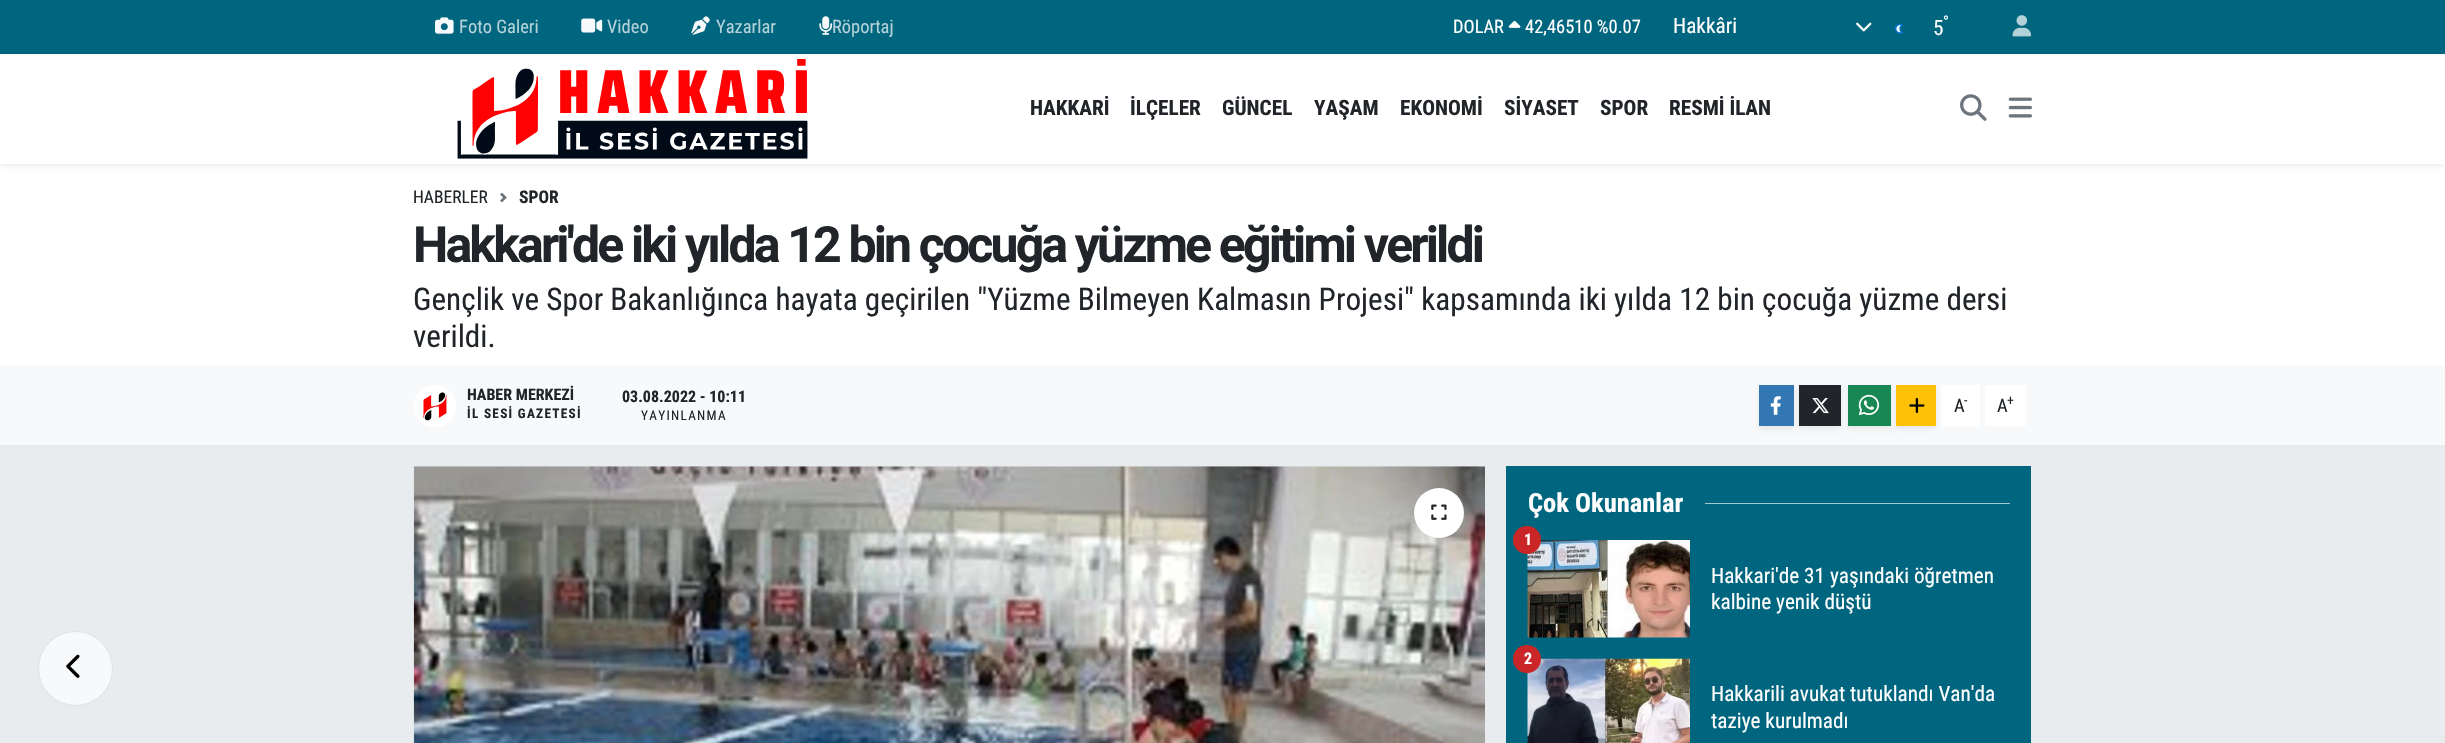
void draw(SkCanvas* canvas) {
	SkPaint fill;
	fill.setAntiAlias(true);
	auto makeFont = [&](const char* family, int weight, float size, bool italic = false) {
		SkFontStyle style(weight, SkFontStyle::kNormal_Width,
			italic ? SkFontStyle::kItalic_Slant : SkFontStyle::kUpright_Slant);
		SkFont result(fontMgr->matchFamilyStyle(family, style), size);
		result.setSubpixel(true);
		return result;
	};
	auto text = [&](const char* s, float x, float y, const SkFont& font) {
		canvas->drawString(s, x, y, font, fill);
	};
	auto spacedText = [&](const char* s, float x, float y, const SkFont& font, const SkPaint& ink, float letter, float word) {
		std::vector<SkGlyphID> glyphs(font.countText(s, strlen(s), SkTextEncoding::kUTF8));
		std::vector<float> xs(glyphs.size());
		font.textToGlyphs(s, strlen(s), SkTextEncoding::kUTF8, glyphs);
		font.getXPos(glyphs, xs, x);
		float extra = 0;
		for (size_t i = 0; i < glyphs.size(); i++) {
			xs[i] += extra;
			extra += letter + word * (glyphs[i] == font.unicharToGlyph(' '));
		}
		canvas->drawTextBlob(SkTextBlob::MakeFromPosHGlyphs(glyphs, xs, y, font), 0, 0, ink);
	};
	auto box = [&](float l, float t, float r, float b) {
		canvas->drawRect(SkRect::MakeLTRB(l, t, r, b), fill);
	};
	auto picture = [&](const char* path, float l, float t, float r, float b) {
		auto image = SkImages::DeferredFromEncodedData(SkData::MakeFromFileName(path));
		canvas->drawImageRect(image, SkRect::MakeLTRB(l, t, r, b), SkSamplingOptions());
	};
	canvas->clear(0xFFE9ECEF);
	fill.setColor(0xFF00657E);
	box(0, 0, 2445, 54);
	picture("image0.png", 435, 17, 454, 34);
	picture("image1.png", 581, 18, 603, 33);
	picture("image2.png", 691, 16, 710, 35);
	picture("image3.png", 819, 16, 833, 35);
	picture("image4.png", 1508, 20, 1521, 28);
	picture("image5.png", 1856, 22, 1872, 32);
	picture("image6.png", 1895, 23, 1904, 34);
	picture("image7.png", 2012, 15, 2032, 37);
	fill.setColor(0xFFFFFFFF);
	box(0, 164, 2445, 366);
	fill.setColor(0x12000000);
	fill.setMaskFilter(SkMaskFilter::MakeBlur(kNormal_SkBlurStyle, 2.5f));
	canvas->drawRect(SkRect::MakeLTRB(0, 56, 2445, 166), fill);
	fill.setMaskFilter(nullptr);
	fill.setColor(0xFFFFFFFF);
	box(0, 54, 2445, 164);
	picture("image8.png", 457, 59, 808, 159);
	picture("image9.png", 1960, 94, 1987, 121);
	picture("image10.png", 2008, 97, 2032, 118);
	fill.setColor(0xFFF8F9FA);
	canvas->drawCircle(75.5f, 668.5f, 37, fill);
	fill.setStyle(SkPaint::kStroke_Style);
	fill.setStrokeWidth(1);
	fill.setColor(0xFFDEE2E6);
	canvas->drawCircle(75.5f, 668.5f, 37, fill);
	picture("image11.png", 66, 654, 80, 678);
	picture("image12.png", 500, 193, 507, 203);
	fill.setStyle(SkPaint::kFill_Style);
	fill.setColor(0xFFF8F9FA);
	box(0, 366, 2445, 445);
	picture("image13.png", 414, 385, 456, 427);
	fill.setColor(0x12000000);
	fill.setMaskFilter(SkMaskFilter::MakeBlur(kNormal_SkBlurStyle, 2.5f));
	canvas->drawRect(SkRect::MakeLTRB(1759, 388, 1794, 429), fill);
	fill.setMaskFilter(nullptr);
	fill.setColor(0xFF3276B3);
	box(1759, 385, 1794, 426);
	picture("image14.png", 1770, 396, 1781, 415);
	fill.setColor(0x12000000);
	fill.setMaskFilter(SkMaskFilter::MakeBlur(kNormal_SkBlurStyle, 2.5f));
	canvas->drawRect(SkRect::MakeLTRB(1799, 388, 1841, 429), fill);
	fill.setMaskFilter(nullptr);
	fill.setColor(0xFF212529);
	box(1799, 385, 1841, 426);
	picture("image15.png", 1812, 398, 1829, 414);
	fill.setColor(0x12000000);
	fill.setMaskFilter(SkMaskFilter::MakeBlur(kNormal_SkBlurStyle, 2.5f));
	canvas->drawRect(SkRect::MakeLTRB(1848, 388, 1891, 429), fill);
	fill.setMaskFilter(nullptr);
	fill.setColor(0xFF198754);
	box(1848, 385, 1891, 426);
	picture("image16.png", 1858, 394, 1880, 416);
	fill.setColor(0xFFFFFFFF);
	box(1941, 385, 1980, 426);
	fill.setColor(0x12000000);
	fill.setMaskFilter(SkMaskFilter::MakeBlur(kNormal_SkBlurStyle, 2.5f));
	canvas->drawRect(SkRect::MakeLTRB(1896, 388, 1936, 429), fill);
	fill.setMaskFilter(nullptr);
	fill.setColor(0xFFFFC107);
	box(1896, 385, 1936, 426);
	picture("image17.png", 1909, 398, 1925, 414);
	fill.setColor(0xFFFFFFFF);
	box(1985, 385, 2026, 426);
	picture("image18.png", 413, 466, 1485, 743);
	canvas->drawCircle(1439, 513, 25, fill);
	picture("image19.png", 1431, 504, 1447, 520);
	fill.setColor(0xFF00657E);
	box(1506, 466, 2031, 743);
	fill.setColor(0xFFA7C6CD);
	box(1705, 503, 2010, 504);
	picture("image20.png", 1527, 540, 1690, 638);
	fill.setColor(0xFFCA2527);
	canvas->drawCircle(1527, 540, 14, fill);
	picture("image21.png", 1527, 658, 1690, 743);
	canvas->drawCircle(1527, 659, 14, fill);
	auto font1 = makeFont("Roboto Condensed", 400, 18.5f);
	fill.setColor(0xFFB3D1D8);
	text("Foto Galeri", 459, 33, font1);
	text("Video", 607, 33, font1);
	text("Yazarlar", 716, 33, font1);
	text("Röportaj", 832, 33, font1);
	fill.setColor(0xFFFFFFFF);
	text("DOLAR", 1453, 33, font1);
	text("42,46510 %0.07", 1525, 33, font1);
	auto font2 = makeFont("Roboto Condensed", 400, 21.25f);
	text("Hakkâri", 1673, 33, font2);
	auto font3 = makeFont("Roboto Condensed", 400, 16);
	text("°", 1943, 27, font3);
	text("5", 1933, 35, font2);
	auto font4 = makeFont("Roboto Condensed", 700, 21.25f);
	fill.setColor(0xFF212529);
	text("HAKKARİ", 1030, 115, font4);
	text("İLÇELER", 1130, 115, font4);
	text("GÜNCEL", 1222, 115, font4);
	text("YAŞAM", 1314, 115, font4);
	text("EKONOMİ", 1400, 115, font4);
	text("SİYASET", 1504, 115, font4);
	text("SPOR", 1600, 115, font4);
	text("RESMİ İLAN", 1669, 115, font4);
	auto font5 = makeFont("Roboto Condensed", 400, 17.5f);
	text("HABERLER", 413, 203, font5);
	auto font6 = makeFont("Roboto Condensed", 700, 17.5f);
	text("SPOR", 519, 203, font6);
	auto font7 = makeFont("Roboto", 700, 50);
	spacedText("Hakkari'de iki yılda 12 bin çocuğa yüzme eğitimi verildi", 413, 262, font7, fill, -2.88f, 0);
	auto font8 = makeFont("Roboto Condensed", 400, 31.25f);
	text("Gençlik ve Spor Bakanlığınca hayata geçirilen \"Yüzme Bilmeyen Kalmasın Projesi\" kapsamında iki yılda 12 bin çocuğa yüzme dersi", 413, 310, font8);
	text("verildi.", 413, 347, font8);
	auto font9 = makeFont("Roboto Condensed", 700, 16);
	text("HABER MERKEZİ", 467, 400, font9);
	auto font10 = makeFont("Roboto Condensed", 700, 13.25f);
	spacedText("İL SESİ GAZETESİ", 467, 418, font10, fill, 1.3f, 0);
	text("03.08.2022 - 10:11", 622, 402, font9);
	auto font11 = makeFont("Roboto Condensed", 400, 13.25f);
	spacedText("YAYINLANMA", 641, 420, font11, fill, 1.3f, 0);
	text("A", 1954, 412, font1);
	auto font12 = makeFont("Roboto Condensed", 400, 14);
	text("-", 1964, 405, font12);
	text("A", 1997, 412, font1);
	text("+", 2007, 405, font12);
	auto font13 = makeFont("Roboto Condensed", 700, 26.5f);
	fill.setColor(0xFFFFFFFF);
	text("Çok Okunanlar", 1528, 512, font13);
	text("1", 1524, 545, font9);
	text("Hakkari'de 31 yaşındaki öğretmen", 1711, 583, font2);
	text("kalbine yenik düştü", 1711, 609, font2);
	text("2", 1524, 664, font9);
	text("Hakkarili avukat tutuklandı Van'da", 1711, 701, font2);
	text("taziye kurulmadı", 1711, 728, font2);
}
